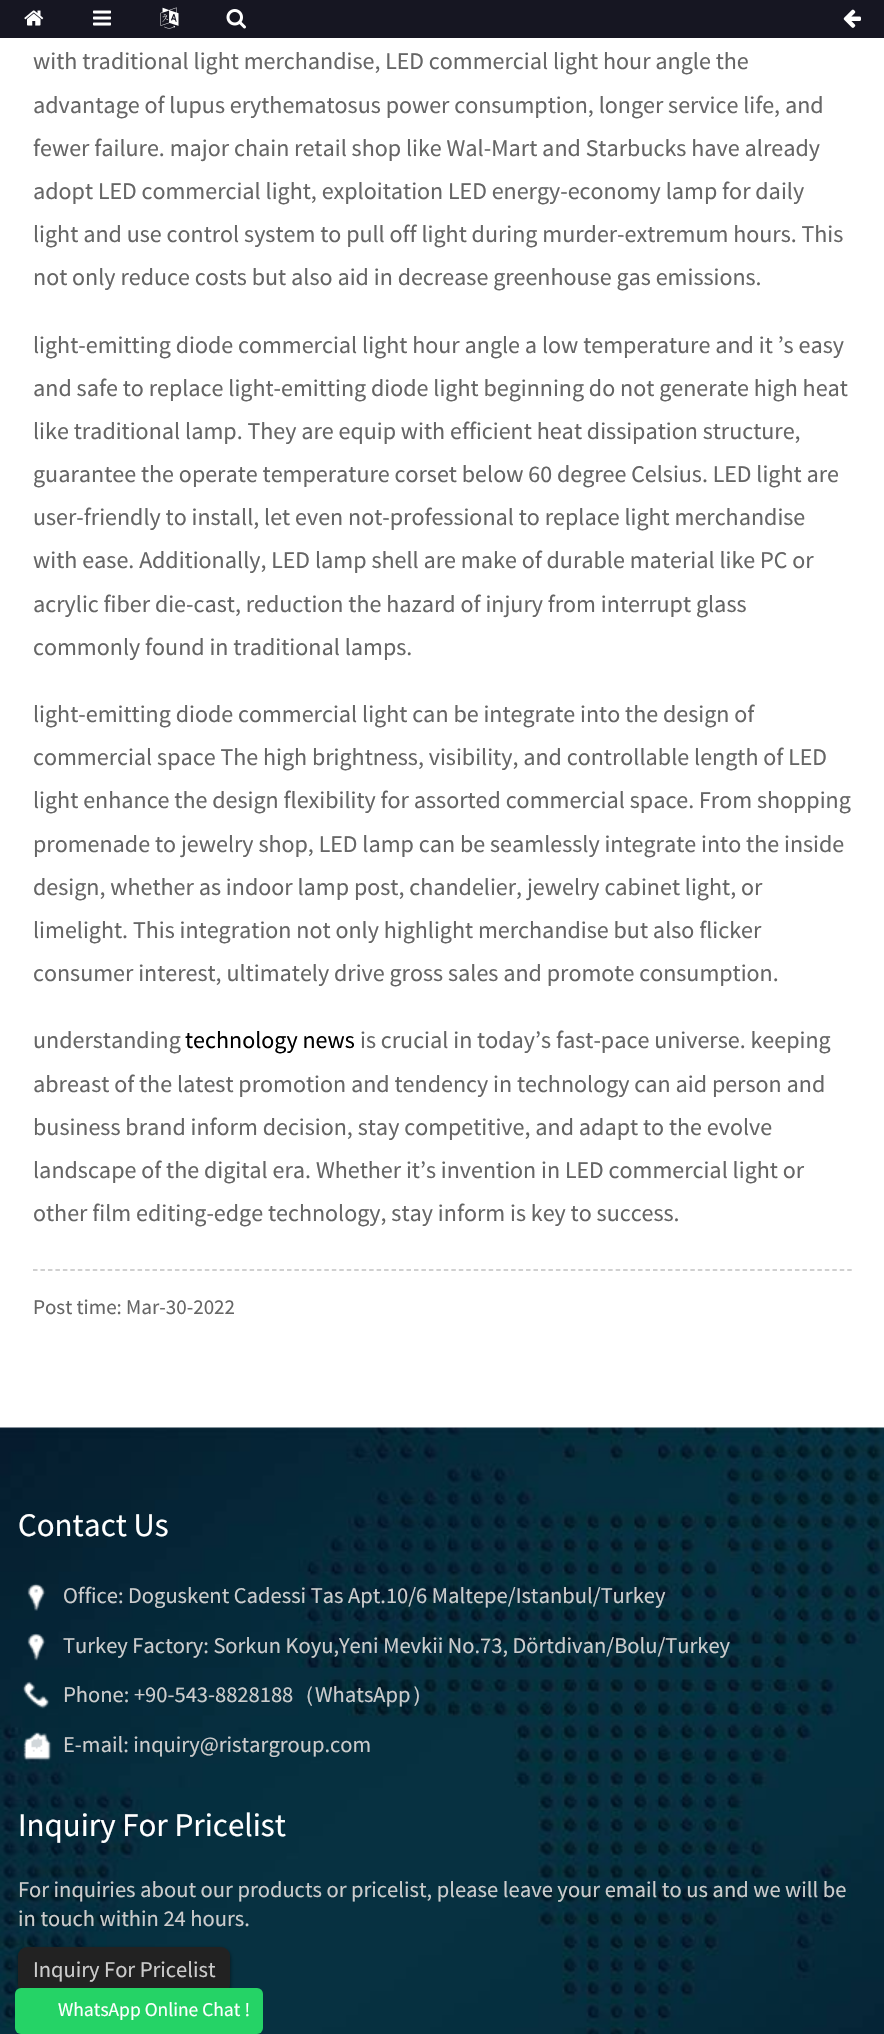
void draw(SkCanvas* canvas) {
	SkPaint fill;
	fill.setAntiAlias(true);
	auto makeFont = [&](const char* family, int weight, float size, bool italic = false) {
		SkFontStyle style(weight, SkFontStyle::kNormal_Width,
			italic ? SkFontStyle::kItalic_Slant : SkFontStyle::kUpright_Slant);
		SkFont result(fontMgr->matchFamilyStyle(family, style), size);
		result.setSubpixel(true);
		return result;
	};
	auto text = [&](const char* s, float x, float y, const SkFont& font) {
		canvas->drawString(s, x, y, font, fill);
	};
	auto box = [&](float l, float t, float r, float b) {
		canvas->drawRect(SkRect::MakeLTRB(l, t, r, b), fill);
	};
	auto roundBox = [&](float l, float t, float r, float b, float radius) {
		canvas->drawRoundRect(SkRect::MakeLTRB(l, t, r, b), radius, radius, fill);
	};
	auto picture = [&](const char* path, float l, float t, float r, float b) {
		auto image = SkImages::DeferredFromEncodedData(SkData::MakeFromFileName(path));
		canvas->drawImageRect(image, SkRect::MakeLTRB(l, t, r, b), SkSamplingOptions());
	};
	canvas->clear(0xFFFFFFFF);
	fill.setColor(0xFF161622);
	box(0, 0, 884, 38);
	picture("image0.png", 24, 10, 44, 26);
	picture("image1.png", 93, 10, 111, 26);
	picture("image2.png", 160, 7, 179, 29);
	picture("image3.png", 226, 9, 246, 29);
	picture("image4.png", 843, 9, 861, 28);
	fill.setStyle(SkPaint::kStroke_Style);
	fill.setStrokeWidth(1.5f);
	fill.setColor(0xFFC1C1C1);
	fill.setPathEffect(SkDashPathEffect::Make({{4.5f, 2.97f}}, 0));
	canvas->drawPath(SkPathBuilder().moveTo(33, 1270).lineTo(852, 1270).detach(), fill);
	fill.setPathEffect(nullptr);
	picture("image5.png", 0, 1427, 884, 2034);
	picture("image6.png", 27, 1583, 46, 1611);
	picture("image7.png", 27, 1633, 46, 1661);
	picture("image8.png", 22, 1681, 50, 1709);
	picture("image9.png", 23, 1732, 52, 1761);
	fill.setStyle(SkPaint::kFill_Style);
	fill.setColor(0x99000000);
	fill.setMaskFilter(SkMaskFilter::MakeBlur(kNormal_SkBlurStyle, 2));
	canvas->drawRoundRect(SkRect::MakeLTRB(18, 1949, 230, 1995), 9, 9, fill);
	fill.setMaskFilter(nullptr);
	fill.setColor(0xFF222222);
	roundBox(18, 1947, 230, 1994, 9);
	fill.setColor(0xFF25D366);
	roundBox(15, 1988, 263, 2034, 6);
	auto font1 = makeFont("Source Sans Pro", 400, 24);
	fill.setColor(0xFF666666);
	text("with traditional light merchandise, LED commercial light hour angle the", 33, 69, font1);
	text("advantage of lupus erythematosus power consumption, longer service life, and", 33, 113, font1);
	text("fewer failure. major chain retail shop like Wal-Mart and Starbucks have already", 33, 156, font1);
	text("adopt LED commercial light, exploitation LED energy-economy lamp for daily", 33, 199, font1);
	text("light and use control system to pull off light during murder-extremum hours. This", 33, 242, font1);
	text("not only reduce costs but also aid in decrease greenhouse gas emissions.", 33, 285, font1);
	text("light-emitting diode commercial light hour angle a low temperature and it ’s easy", 33, 353, font1);
	text("and safe to replace light-emitting diode light beginning do not generate high heat", 33, 396, font1);
	text("like traditional lamp. They are equip with efficient heat dissipation structure,", 33, 439, font1);
	text("guarantee the operate temperature corset below 60 degree Celsius. LED light are", 33, 482, font1);
	text("user-friendly to install, let even not-professional to replace light merchandise", 33, 525, font1);
	text("with ease. Additionally, LED lamp shell are make of durable material like PC or", 33, 568, font1);
	text("acrylic fiber die-cast, reduction the hazard of injury from interrupt glass", 33, 612, font1);
	text("commonly found in traditional lamps.", 33, 655, font1);
	text("light-emitting diode commercial light can be integrate into the design of", 33, 722, font1);
	text("commercial space The high brightness, visibility, and controllable length of LED", 33, 765, font1);
	text("light enhance the design flexibility for assorted commercial space. From shopping", 33, 808, font1);
	text("promenade to jewelry shop, LED lamp can be seamlessly integrate into the inside", 33, 852, font1);
	text("design, whether as indoor lamp post, chandelier, jewelry cabinet light, or", 33, 895, font1);
	text("limelight. This integration not only highlight merchandise but also flicker", 33, 938, font1);
	text("consumer interest, ultimately drive gross sales and promote consumption.", 33, 981, font1);
	text("understanding", 33, 1048, font1);
	fill.setColor(0xFF000000);
	text("technology news", 185, 1048, font1);
	fill.setColor(0xFF666666);
	text("is crucial in today’s fast-pace universe. keeping", 360, 1048, font1);
	text("abreast of the latest promotion and tendency in technology can aid person and", 33, 1092, font1);
	text("business brand inform decision, stay competitive, and adapt to the evolve", 33, 1135, font1);
	text("landscape of the digital era. Whether it’s invention in LED commercial light or", 33, 1178, font1);
	text("other film editing-edge technology, stay inform is key to success.", 33, 1221, font1);
	auto font2 = makeFont("Source Sans Pro", 400, 21);
	text("Post time: Mar-30-2022", 33, 1314, font2);
	auto font3 = makeFont("Source Sans Pro", 400, 33);
	fill.setColor(0xFFFFFFFF);
	text("Contact Us", 18, 1536, font3);
	auto font4 = makeFont("Source Sans Pro", 400, 22.5f);
	fill.setColor(0xFFCCCCCC);
	text("Office: Doguskent Cadessi Tas Apt.10/6 Maltepe/Istanbul/Turkey", 63, 1603, font4);
	text("Turkey Factory: Sorkun Koyu,Yeni Mevkii No.73, Dörtdivan/Bolu/Turkey", 63, 1653, font4);
	text("Phone: +90-543-8828188", 63, 1702, font4);
	auto font5 = makeFont("WenQuanYi Zen Hei", 500, 22.5f);
	text("（", 293, 1702, font5);
	text("WhatsApp", 315, 1702, font4);
	text("）", 411, 1702, font5);
	text("E-mail: inquiry@ristargroup.com", 63, 1752, font4);
	fill.setColor(0xFFFFFFFF);
	text("Inquiry For Pricelist", 18, 1836, font3);
	fill.setColor(0xFFCCCCCC);
	text("For inquiries about our products or pricelist, please leave your email to us and we will be", 18, 1897, font4);
	text("in touch within 24 hours.", 18, 1926, font4);
	text("Inquiry For Pricelist", 33, 1977, font4);
	auto font6 = makeFont("Source Sans Pro", 400, 19.5f);
	fill.setColor(0xFFFFFFFF);
	text("WhatsApp Online Chat !", 58, 2016, font6);
}
